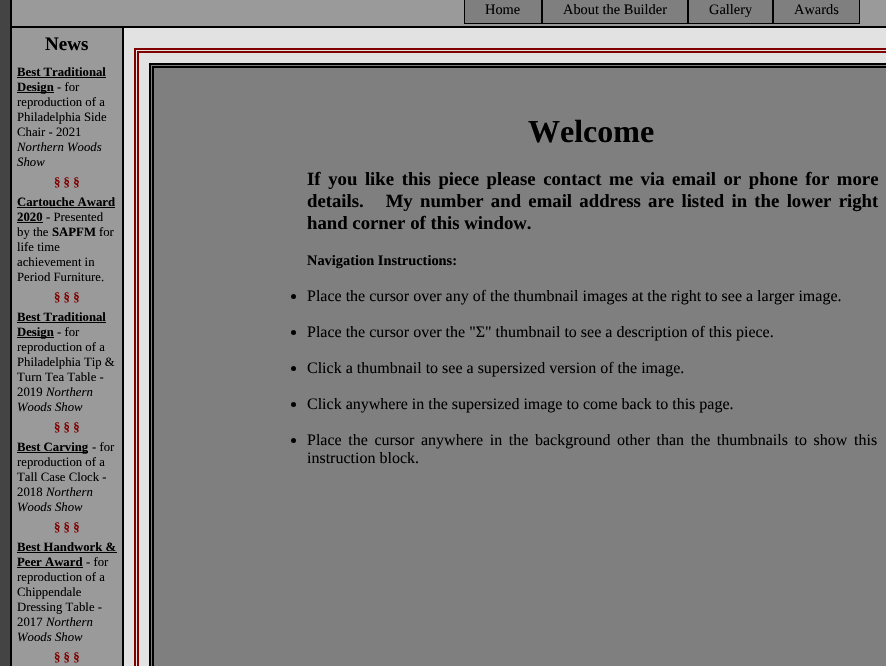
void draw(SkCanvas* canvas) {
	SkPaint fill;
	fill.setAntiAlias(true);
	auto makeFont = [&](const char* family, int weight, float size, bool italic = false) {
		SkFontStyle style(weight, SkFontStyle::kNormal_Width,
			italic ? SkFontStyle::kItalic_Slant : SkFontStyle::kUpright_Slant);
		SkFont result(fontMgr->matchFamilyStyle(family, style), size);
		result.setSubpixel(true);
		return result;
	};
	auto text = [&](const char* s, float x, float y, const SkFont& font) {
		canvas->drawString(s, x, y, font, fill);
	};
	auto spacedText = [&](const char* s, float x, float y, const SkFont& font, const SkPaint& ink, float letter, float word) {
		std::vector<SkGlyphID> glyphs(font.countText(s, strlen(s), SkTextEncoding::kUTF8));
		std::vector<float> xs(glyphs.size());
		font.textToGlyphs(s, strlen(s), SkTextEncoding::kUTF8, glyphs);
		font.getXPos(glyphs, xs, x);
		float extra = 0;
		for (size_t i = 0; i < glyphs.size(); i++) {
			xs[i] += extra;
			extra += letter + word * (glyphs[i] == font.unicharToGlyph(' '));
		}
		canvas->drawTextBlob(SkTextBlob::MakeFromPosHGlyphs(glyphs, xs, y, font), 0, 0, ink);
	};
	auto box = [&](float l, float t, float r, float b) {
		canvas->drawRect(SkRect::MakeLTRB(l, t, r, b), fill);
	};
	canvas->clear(0xFF444444);
	fill.setColor(0xFF9A9A9A);
	canvas->drawRect(SkRect::MakeLTRB(11, -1, 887, 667), fill);
	fill.setStyle(SkPaint::kStroke_Style);
	fill.setStrokeWidth(2);
	fill.setColor(0xFF000000);
	canvas->drawRect(SkRect::MakeLTRB(11, -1, 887, 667), fill);
	fill.setStrokeWidth(1);
	canvas->drawRect(SkRect::MakeLTRB(464.5f, -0.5f, 541.5f, 23.5f), fill);
	fill.setStyle(SkPaint::kFill_Style);
	fill.setColor(0xFF7F7F7F);
	box(465, 0, 541, 23);
	fill.setStyle(SkPaint::kStroke_Style);
	fill.setColor(0xFF000000);
	canvas->drawRect(SkRect::MakeLTRB(542.5f, -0.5f, 687.5f, 23.5f), fill);
	fill.setStyle(SkPaint::kFill_Style);
	fill.setColor(0xFF7F7F7F);
	box(543, 0, 687, 23);
	fill.setStyle(SkPaint::kStroke_Style);
	fill.setColor(0xFF000000);
	canvas->drawRect(SkRect::MakeLTRB(688.5f, -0.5f, 772.5f, 23.5f), fill);
	fill.setStyle(SkPaint::kFill_Style);
	fill.setColor(0xFF7F7F7F);
	box(689, 0, 772, 23);
	fill.setStyle(SkPaint::kStroke_Style);
	fill.setColor(0xFF000000);
	canvas->drawRect(SkRect::MakeLTRB(773.5f, -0.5f, 859.5f, 23.5f), fill);
	fill.setStyle(SkPaint::kFill_Style);
	fill.setColor(0xFF7F7F7F);
	box(774, 0, 859, 23);
	fill.setColor(0xFF000000);
	box(12, 26, 886, 28);
	box(17, 77, 106, 78);
	box(17, 92, 54, 93);
	box(17, 207, 115, 208);
	box(17, 222, 43, 223);
	box(17, 322, 106, 323);
	box(17, 337, 54, 338);
	box(17, 452, 88, 453);
	box(17, 552, 117, 553);
	box(17, 567, 83, 568);
	fill.setColor(0xFFE2E2E2);
	box(124, 28, 886, 666);
	fill.setColor(0xFF000000);
	box(122, 28, 124, 666);
	fill.setStyle(SkPaint::kStroke_Style);
	fill.setStrokeWidth(2);
	fill.setColor(0xFF800000);
	canvas->drawRect(SkRect::MakeLTRB(135, 49, 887, 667), fill);
	canvas->drawRect(SkRect::MakeLTRB(138, 52, 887, 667), fill);
	fill.setStyle(SkPaint::kFill_Style);
	fill.setColor(0xFF7F7F7F);
	canvas->drawRect(SkRect::MakeLTRB(150, 64, 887, 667), fill);
	fill.setStyle(SkPaint::kStroke_Style);
	fill.setColor(0xFF000000);
	canvas->drawRect(SkRect::MakeLTRB(150, 64, 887, 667), fill);
	canvas->drawRect(SkRect::MakeLTRB(153, 67, 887, 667), fill);
	fill.setStyle(SkPaint::kFill_Style);
	canvas->drawCircle(293.5f, 296.5f, 2.5f, fill);
	canvas->drawCircle(293.5f, 332.5f, 2.5f, fill);
	canvas->drawCircle(293.5f, 368.5f, 2.5f, fill);
	canvas->drawCircle(293.5f, 404.5f, 2.5f, fill);
	canvas->drawCircle(293.5f, 440.5f, 2.5f, fill);
	auto font1 = makeFont("Liberation Serif", 400, 14.4f);
	text("Home", 485, 14, font1);
	text("About the Builder", 563, 14, font1);
	text("Gallery", 709, 14, font1);
	text("Awards", 794, 14, font1);
	auto font2 = makeFont("Liberation Serif", 700, 19);
	text("News", 45, 50, font2);
	auto font3 = makeFont("Liberation Serif", 700, 12.75f);
	text("Best Traditional", 17, 76, font3);
	text("Design", 17, 91, font3);
	auto font4 = makeFont("Liberation Serif", 400, 12.75f);
	text("- for", 57, 91, font4);
	text("reproduction of a", 17, 106, font4);
	text("Philadelphia Side", 17, 121, font4);
	text("Chair - 2021", 17, 136, font4);
	auto font5 = makeFont("Liberation Serif", 400, 12.75f, true);
	text("Northern Woods", 17, 151, font5);
	text("Show", 17, 166, font5);
	fill.setColor(0xFF800000);
	text("§ § §", 54, 186, font3);
	fill.setColor(0xFF000000);
	text("Cartouche Award", 17, 206, font3);
	text("2020", 17, 221, font3);
	text("- Presented", 46, 221, font4);
	text("by the", 17, 236, font4);
	text("SAPFM", 52, 236, font3);
	text("for", 99, 236, font4);
	text("life time", 17, 251, font4);
	text("achievement in", 17, 266, font4);
	text("Period Furniture.", 17, 281, font4);
	fill.setColor(0xFF800000);
	text("§ § §", 54, 301, font3);
	fill.setColor(0xFF000000);
	text("Best Traditional", 17, 321, font3);
	text("Design", 17, 336, font3);
	text("- for", 57, 336, font4);
	text("reproduction of a", 17, 351, font4);
	text("Philadelphia Tip &", 17, 366, font4);
	text("Turn Tea Table -", 17, 381, font4);
	text("2019", 17, 396, font4);
	text("Northern", 46, 396, font5);
	text("Woods Show", 17, 411, font5);
	fill.setColor(0xFF800000);
	text("§ § §", 54, 431, font3);
	fill.setColor(0xFF000000);
	text("Best Carving", 17, 451, font3);
	text("- for", 92, 451, font4);
	text("reproduction of a", 17, 466, font4);
	text("Tall Case Clock -", 17, 481, font4);
	text("2018", 17, 496, font4);
	text("Northern", 46, 496, font5);
	text("Woods Show", 17, 511, font5);
	fill.setColor(0xFF800000);
	text("§ § §", 54, 531, font3);
	fill.setColor(0xFF000000);
	text("Best Handwork &", 17, 551, font3);
	text("Peer Award", 17, 566, font3);
	text("- for", 86, 566, font4);
	text("reproduction of a", 17, 581, font4);
	text("Chippendale", 17, 596, font4);
	text("Dressing Table -", 17, 611, font4);
	text("2017", 17, 626, font4);
	text("Northern", 46, 626, font5);
	text("Woods Show", 17, 641, font5);
	fill.setColor(0xFF800000);
	text("§ § §", 54, 661, font3);
	auto font6 = makeFont("Liberation Serif", 700, 32);
	fill.setColor(0xFF000000);
	text("Welcome", 528, 142, font6);
	auto font7 = makeFont("Liberation Serif", 700, 18.75f);
	spacedText("If you like this piece please contact me via email or phone for more", 307, 185, font7, fill, 0, 2.9f);
	spacedText("details.   My number and email address are listed in the lower right", 307, 207, font7, fill, 0, 2.6f);
	text("hand corner of this window.", 307, 229, font7);
	auto font8 = makeFont("Liberation Serif", 700, 14.4f);
	text("Navigation Instructions:", 307, 265, font8);
	auto font9 = makeFont("Liberation Serif", 400, 16);
	text("Place the cursor over any of the thumbnail images at the right to see a larger image.", 307, 301, font9);
	text("Place the cursor over the \"Σ\" thumbnail to see a description of this piece.", 307, 337, font9);
	text("Click a thumbnail to see a supersized version of the image.", 307, 373, font9);
	text("Click anywhere in the supersized image to come back to this page.", 307, 409, font9);
	spacedText("Place the cursor anywhere in the background other than the thumbnails to show this", 307, 445, font9, fill, 0, 2.6f);
	text("instruction block.", 307, 463, font9);
}
